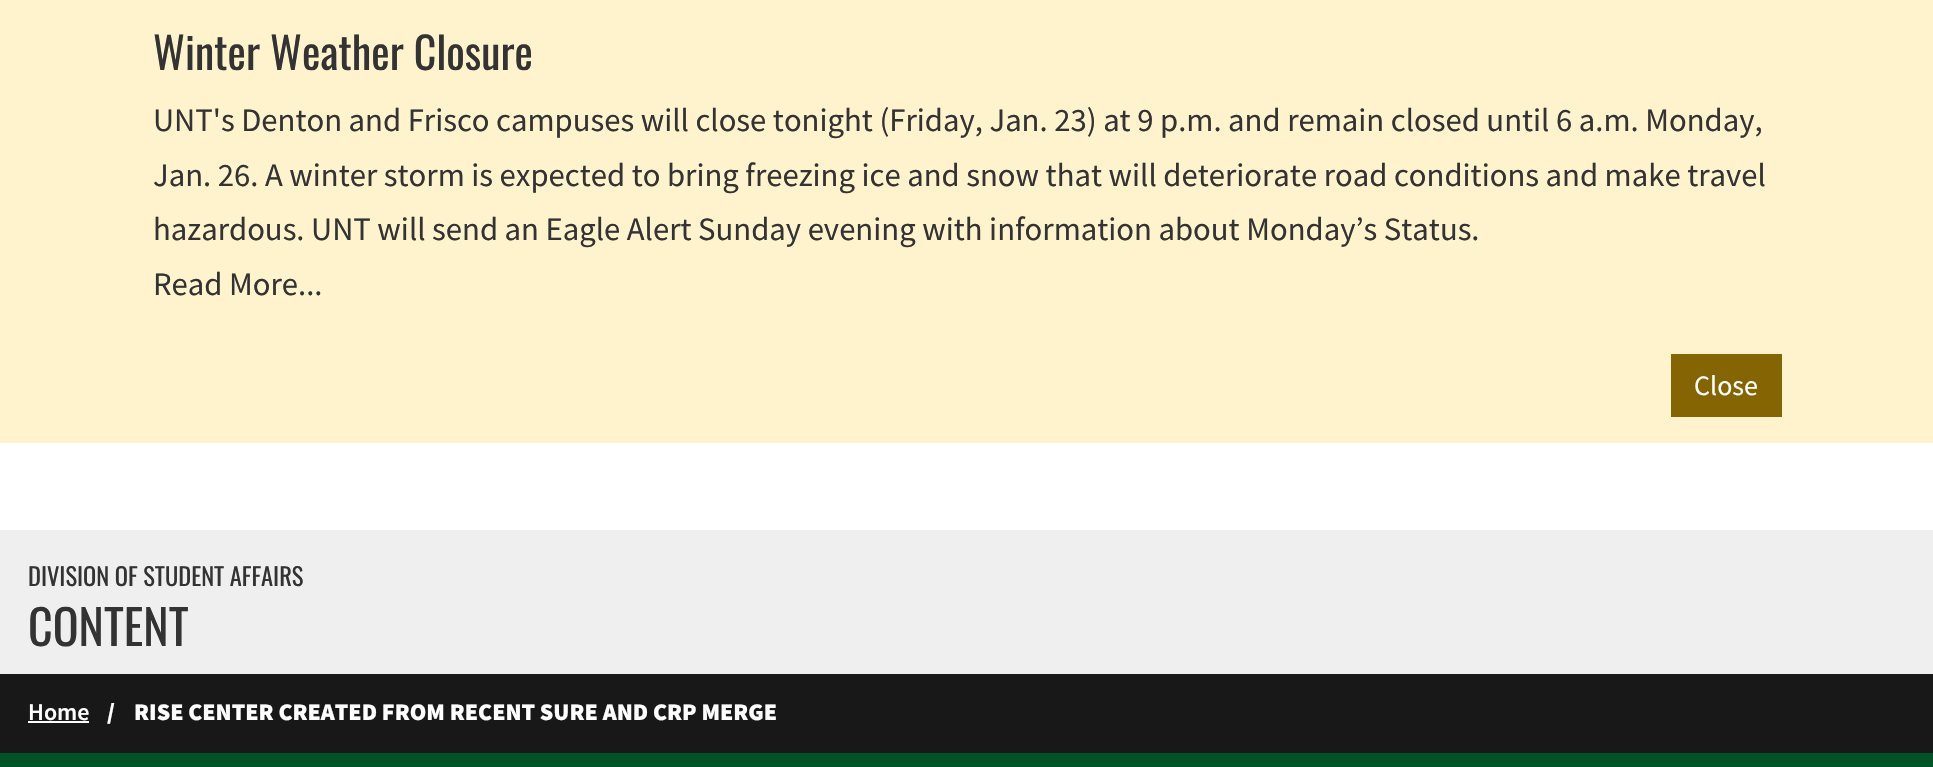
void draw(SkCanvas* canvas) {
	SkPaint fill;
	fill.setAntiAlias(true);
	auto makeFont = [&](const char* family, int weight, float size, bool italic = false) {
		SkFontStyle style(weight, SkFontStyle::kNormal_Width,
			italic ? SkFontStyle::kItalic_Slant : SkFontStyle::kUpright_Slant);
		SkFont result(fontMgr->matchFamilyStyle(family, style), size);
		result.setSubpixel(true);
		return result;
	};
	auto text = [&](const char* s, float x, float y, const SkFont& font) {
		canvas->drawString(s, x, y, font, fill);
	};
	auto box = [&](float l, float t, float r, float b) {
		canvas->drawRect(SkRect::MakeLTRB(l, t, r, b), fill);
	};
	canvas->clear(0xFFFFFFFF);
	fill.setColor(0xFFFFF3CD);
	box(0, 0, 1933, 443);
	fill.setColor(0xFF856404);
	box(1671, 354, 1782, 417);
	fill.setColor(0xFFEFEFEF);
	box(0, 530, 1933, 674);
	fill.setColor(0xFF181818);
	box(0, 674, 1933, 753);
	fill.setColor(0xFFFFFFFF);
	box(28, 721, 89, 723);
	fill.setColor(0xFF005326);
	box(0, 753, 1933, 767);
	auto font1 = makeFont("Oswald", 400, 43.75f);
	fill.setColor(0xFF333333);
	text("Winter Weather Closure", 153, 70, font1);
	auto font2 = makeFont("Source Sans Pro", 400, 32.7f);
	text("UNT's Denton and Frisco campuses will close tonight (Friday, Jan. 23) at 9 p.m. and remain closed until 6 a.m. Monday,", 153, 131, font2);
	text("Jan. 26. A winter storm is expected to bring freezing ice and snow that will deteriorate road conditions and make travel", 153, 186, font2);
	text("hazardous. UNT will send an Eagle Alert Sunday evening with information about Monday’s Status.", 153, 240, font2);
	text("Read More...", 153, 295, font2);
	auto font3 = makeFont("Source Sans Pro", 400, 28);
	fill.setColor(0xFFFFFFFF);
	text("Close", 1694, 395, font3);
	auto font4 = makeFont("Oswald", 400, 24.5f);
	fill.setColor(0xFF333333);
	text("DIVISION OF STUDENT AFFAIRS", 28, 586, font4);
	auto font5 = makeFont("Oswald", 400, 48);
	text("CONTENT", 28, 646, font5);
	auto font6 = makeFont("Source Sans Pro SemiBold", 600, 23.95f);
	fill.setColor(0xFFFFFFFF);
	text("Home", 28, 720, font6);
	auto font7 = makeFont("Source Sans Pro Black", 900, 23.95f);
	text("/", 107, 720, font7);
	text("RISE CENTER CREATED FROM RECENT SURE AND CRP MERGE", 134, 720, font7);
}
